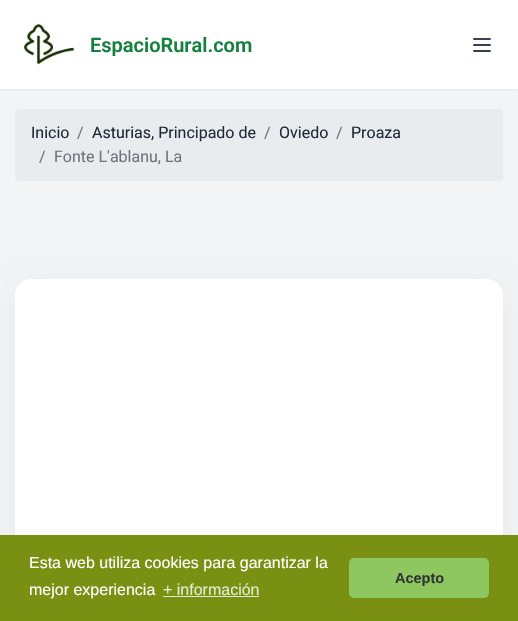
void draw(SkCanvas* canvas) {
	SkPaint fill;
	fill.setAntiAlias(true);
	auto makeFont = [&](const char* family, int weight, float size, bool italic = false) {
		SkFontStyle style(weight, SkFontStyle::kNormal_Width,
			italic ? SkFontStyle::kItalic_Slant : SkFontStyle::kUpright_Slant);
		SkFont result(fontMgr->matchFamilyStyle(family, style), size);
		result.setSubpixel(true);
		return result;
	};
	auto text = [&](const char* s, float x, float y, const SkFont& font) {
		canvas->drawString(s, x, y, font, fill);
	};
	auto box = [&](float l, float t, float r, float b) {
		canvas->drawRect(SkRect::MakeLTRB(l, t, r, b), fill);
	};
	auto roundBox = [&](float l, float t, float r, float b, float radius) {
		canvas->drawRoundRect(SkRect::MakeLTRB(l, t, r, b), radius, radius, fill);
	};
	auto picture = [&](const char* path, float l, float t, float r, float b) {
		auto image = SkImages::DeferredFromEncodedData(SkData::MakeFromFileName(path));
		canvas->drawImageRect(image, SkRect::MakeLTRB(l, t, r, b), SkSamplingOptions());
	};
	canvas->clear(0xFFF3F4F6);
	fill.setColor(0x0D000000);
	fill.setMaskFilter(SkMaskFilter::MakeBlur(kNormal_SkBlurStyle, 1));
	canvas->drawRect(SkRect::MakeLTRB(0, 1, 518, 90), fill);
	fill.setMaskFilter(nullptr);
	fill.setColor(0xFFFFFFFF);
	box(0, 0, 518, 89);
	picture("image0.png", 24, 24, 74, 65);
	fill.setStyle(SkPaint::kStroke_Style);
	fill.setStrokeWidth(2);
	fill.setStrokeCap(SkPaint::kRound_Cap);
	fill.setStrokeJoin(SkPaint::kRound_Join);
	fill.setColor(0xFF374151);
	canvas->drawPath(SkPathBuilder().moveTo(474, 39).lineTo(490, 39).moveTo(474, 45).lineTo(490, 45).moveTo(474, 51).lineTo(490, 51).detach(), fill);
	fill.setStyle(SkPaint::kFill_Style);
	fill.setColor(0xFFE9ECEF);
	roundBox(15, 109, 503, 181, 4);
	fill.setColor(0x0D000000);
	fill.setMaskFilter(SkMaskFilter::MakeBlur(kNormal_SkBlurStyle, 14));
	canvas->drawRoundRect(SkRect::MakeLTRB(15, 287, 503, 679), 16, 16, fill);
	fill.setMaskFilter(nullptr);
	fill.setColor(0xFFFFFFFF);
	roundBox(15, 279, 503, 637, 16);
	fill.setColor(0xFF799013);
	box(0, 535, 518, 621);
	fill.setColor(0xFFE4E9D0);
	box(163, 596, 259, 597);
	fill.setColor(0xFF8EC760);
	roundBox(349, 558, 489, 598, 5);
	auto font1 = makeFont("Roboto", 600, 20);
	fill.setColor(0xFF15803D);
	text("EspacioRural.com", 90, 52, font1);
	auto font2 = makeFont("Roboto", 400, 16);
	fill.setColor(0xFF1F2937);
	text("Inicio", 31, 138, font2);
	fill.setColor(0xFF6C757D);
	text("/", 77, 138, font2);
	fill.setColor(0xFF1F2937);
	text("Asturias, Principado de", 92, 138, font2);
	fill.setColor(0xFF6C757D);
	text("/", 264, 138, font2);
	fill.setColor(0xFF1F2937);
	text("Oviedo", 279, 138, font2);
	fill.setColor(0xFF6C757D);
	text("/", 336, 138, font2);
	fill.setColor(0xFF1F2937);
	text("Proaza", 351, 138, font2);
	fill.setColor(0xFF6C757D);
	text("/", 39, 162, font2);
	text("Fonte L'ablanu, La", 54, 162, font2);
	auto font3 = makeFont("Liberation Sans", 400, 16);
	fill.setColor(0xFFFFFFFF);
	text("Esta web utiliza cookies para garantizar la", 29, 568, font3);
	text("mejor experiencia", 29, 595, font3);
	fill.setColor(0xFFE4E9D0);
	text("+ información", 163, 595, font3);
	auto font4 = makeFont("Liberation Sans", 700, 14.5f);
	fill.setColor(0xFF333333);
	text("Acepto", 395, 583, font4);
}
